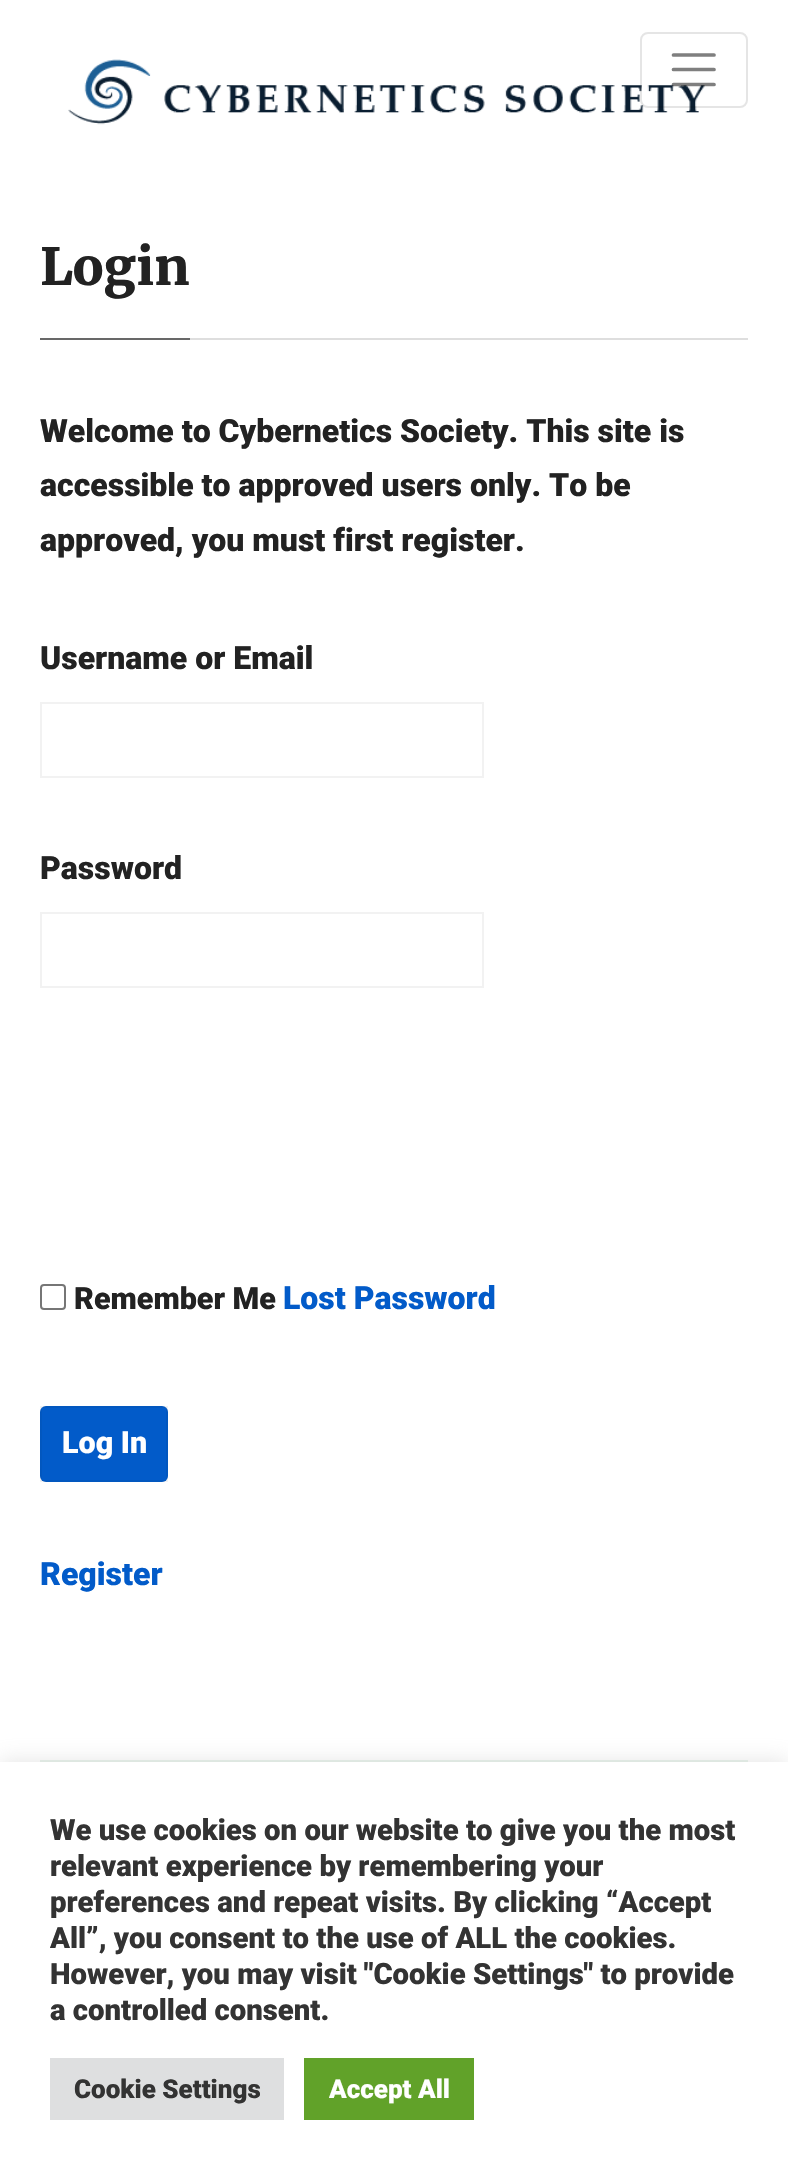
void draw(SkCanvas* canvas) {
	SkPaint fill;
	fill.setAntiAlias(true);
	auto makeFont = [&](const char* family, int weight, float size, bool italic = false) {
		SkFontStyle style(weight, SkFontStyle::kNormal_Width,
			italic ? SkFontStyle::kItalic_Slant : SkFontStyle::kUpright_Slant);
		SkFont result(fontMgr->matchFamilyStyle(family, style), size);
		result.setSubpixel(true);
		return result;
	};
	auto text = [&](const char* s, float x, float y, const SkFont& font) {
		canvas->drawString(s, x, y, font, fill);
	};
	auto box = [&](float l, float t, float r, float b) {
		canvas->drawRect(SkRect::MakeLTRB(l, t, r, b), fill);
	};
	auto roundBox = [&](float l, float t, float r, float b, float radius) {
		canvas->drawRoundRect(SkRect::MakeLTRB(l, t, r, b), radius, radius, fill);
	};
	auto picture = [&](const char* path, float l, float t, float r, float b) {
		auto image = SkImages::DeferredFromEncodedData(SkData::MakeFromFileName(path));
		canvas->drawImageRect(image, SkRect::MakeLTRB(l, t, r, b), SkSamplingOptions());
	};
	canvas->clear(0xFFFFFFFF);
	picture("image0.png", 68, 59, 705, 125);
	fill.setStyle(SkPaint::kStroke_Style);
	fill.setStrokeWidth(2);
	fill.setColor(0x1A000000);
	canvas->drawRoundRect(SkRect::MakeLTRB(641, 33, 747, 107), 7, 7, fill);
	fill.setStrokeWidth(3.7f);
	fill.setStrokeCap(SkPaint::kRound_Cap);
	fill.setColor(0x80000000);
	canvas->drawPath(SkPathBuilder().moveTo(673.5f, 55).lineTo(714, 55).moveTo(673.5f, 69.5f).lineTo(714, 69.5f).moveTo(673.5f, 84.5f).lineTo(714, 84.5f).detach(), fill);
	fill.setStyle(SkPaint::kFill_Style);
	fill.setColor(0xFFDEDEDE);
	box(190, 338, 748, 340);
	fill.setColor(0xFF686868);
	box(40, 338, 190, 340);
	fill.setStyle(SkPaint::kStroke_Style);
	fill.setStrokeWidth(2);
	fill.setStrokeCap(SkPaint::kButt_Cap);
	fill.setColor(0xFFF2F2F2);
	canvas->drawRect(SkRect::MakeLTRB(41, 703, 483, 777), fill);
	canvas->drawRect(SkRect::MakeLTRB(41, 913, 483, 987), fill);
	fill.setColor(0xFF767676);
	canvas->drawRoundRect(SkRect::MakeLTRB(41, 1285, 65, 1309), 3, 3, fill);
	fill.setStyle(SkPaint::kFill_Style);
	fill.setColor(0xFF025BC9);
	roundBox(40, 1406, 168, 1482, 6);
	fill.setStyle(SkPaint::kStroke_Style);
	fill.setColor(0x0D000000);
	canvas->drawRect(SkRect::MakeLTRB(41, 1407, 167, 1481), fill);
	fill.setStyle(SkPaint::kFill_Style);
	fill.setColor(0xFFE8F3EC);
	box(40, 1760, 748, 1762);
	fill.setColor(0x4DACABAB);
	fill.setMaskFilter(SkMaskFilter::MakeBlur(kNormal_SkBlurStyle, 10));
	canvas->drawRect(SkRect::MakeLTRB(0, 1760, 788, 2178), fill);
	fill.setMaskFilter(nullptr);
	fill.setColor(0xFFFFFFFF);
	box(0, 1762, 788, 2179);
	fill.setColor(0xFFDEDFE0);
	box(50, 2058, 284, 2120);
	fill.setColor(0xFF61A229);
	box(304, 2058, 474, 2120);
	auto font1 = makeFont("Merriweather", 900, 51);
	fill.setColor(0xFF222222);
	text("Login", 40, 285, font1);
	auto font2 = makeFont("Roboto", 900, 32);
	text("Welcome to Cybernetics Society. This site is", 40, 442, font2);
	text("accessible to approved users only. To be", 40, 496, font2);
	text("approved, you must first register.", 40, 551, font2);
	text("Username or Email", 40, 669, font2);
	text("Password", 40, 879, font2);
	auto font3 = makeFont("Roboto", 900, 30.5f);
	text("Remember Me", 74, 1309, font3);
	fill.setColor(0xFF025BC9);
	text("Lost Password", 283, 1309, font2);
	fill.setColor(0xFFFFFFFF);
	text("Log In", 62, 1453, font3);
	fill.setColor(0xFF025BC9);
	text("Register", 40, 1585, font2);
	auto font4 = makeFont("Roboto", 900, 29.3f);
	fill.setColor(0xFF333333);
	text("We use cookies on our website to give you the most", 50, 1840, font4);
	text("relevant experience by remembering your", 50, 1876, font4);
	text("preferences and repeat visits. By clicking “Accept", 50, 1912, font4);
	text("All”, you consent to the use of ALL the cookies.", 50, 1948, font4);
	text("However, you may visit \"Cookie Settings\" to provide", 50, 1984, font4);
	text("a controlled consent.", 50, 2020, font4);
	auto font5 = makeFont("Roboto", 900, 26);
	text("Cookie Settings", 74, 2098, font5);
	fill.setColor(0xFFFFFFFF);
	text("Accept All", 329, 2098, font5);
}
